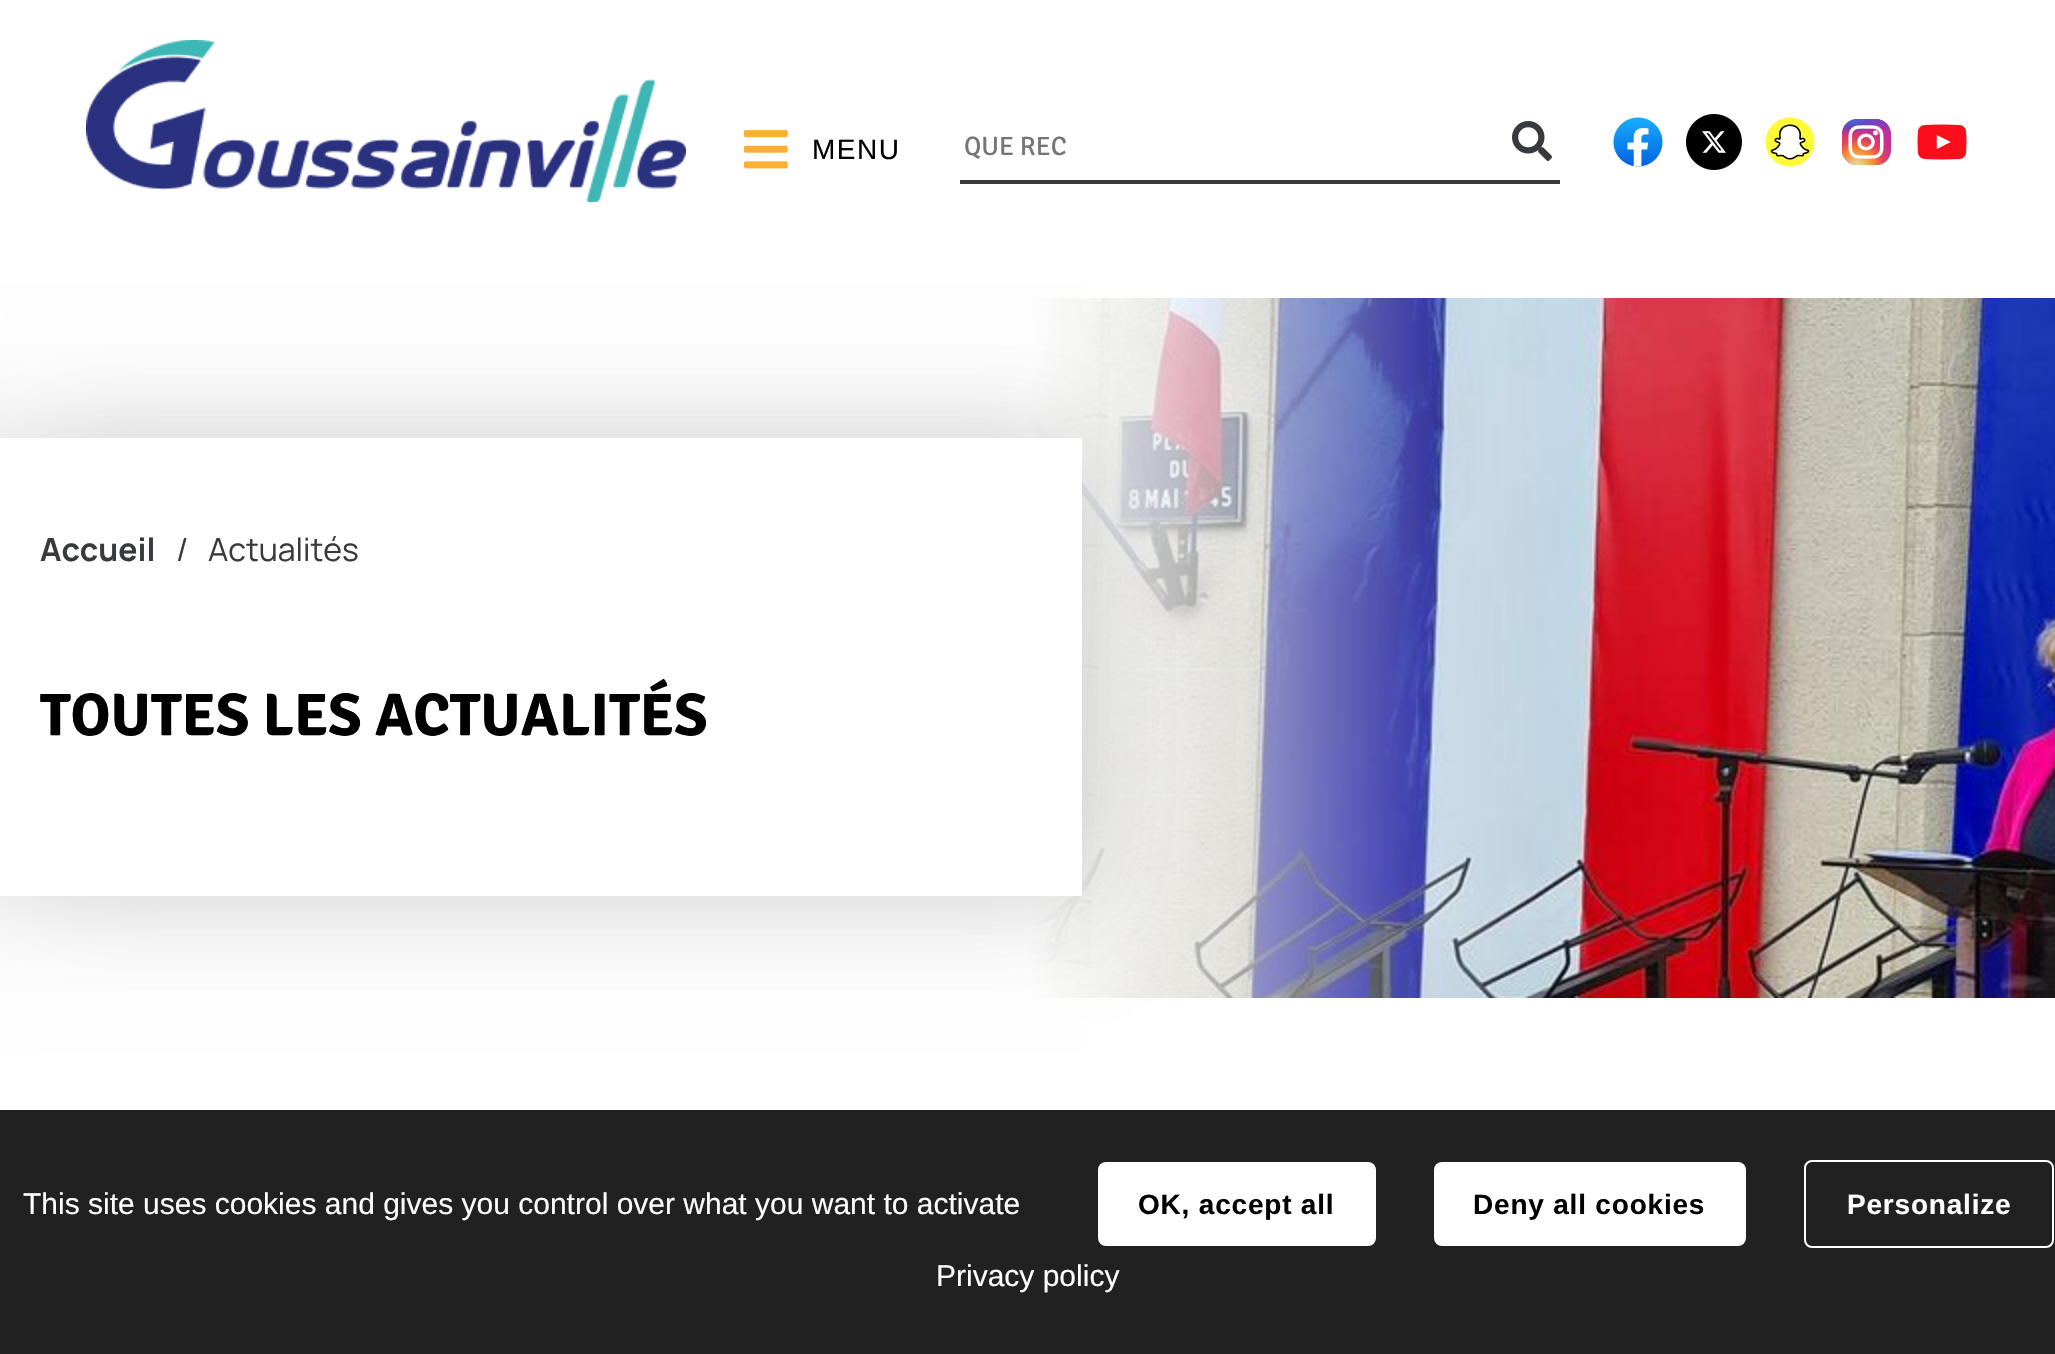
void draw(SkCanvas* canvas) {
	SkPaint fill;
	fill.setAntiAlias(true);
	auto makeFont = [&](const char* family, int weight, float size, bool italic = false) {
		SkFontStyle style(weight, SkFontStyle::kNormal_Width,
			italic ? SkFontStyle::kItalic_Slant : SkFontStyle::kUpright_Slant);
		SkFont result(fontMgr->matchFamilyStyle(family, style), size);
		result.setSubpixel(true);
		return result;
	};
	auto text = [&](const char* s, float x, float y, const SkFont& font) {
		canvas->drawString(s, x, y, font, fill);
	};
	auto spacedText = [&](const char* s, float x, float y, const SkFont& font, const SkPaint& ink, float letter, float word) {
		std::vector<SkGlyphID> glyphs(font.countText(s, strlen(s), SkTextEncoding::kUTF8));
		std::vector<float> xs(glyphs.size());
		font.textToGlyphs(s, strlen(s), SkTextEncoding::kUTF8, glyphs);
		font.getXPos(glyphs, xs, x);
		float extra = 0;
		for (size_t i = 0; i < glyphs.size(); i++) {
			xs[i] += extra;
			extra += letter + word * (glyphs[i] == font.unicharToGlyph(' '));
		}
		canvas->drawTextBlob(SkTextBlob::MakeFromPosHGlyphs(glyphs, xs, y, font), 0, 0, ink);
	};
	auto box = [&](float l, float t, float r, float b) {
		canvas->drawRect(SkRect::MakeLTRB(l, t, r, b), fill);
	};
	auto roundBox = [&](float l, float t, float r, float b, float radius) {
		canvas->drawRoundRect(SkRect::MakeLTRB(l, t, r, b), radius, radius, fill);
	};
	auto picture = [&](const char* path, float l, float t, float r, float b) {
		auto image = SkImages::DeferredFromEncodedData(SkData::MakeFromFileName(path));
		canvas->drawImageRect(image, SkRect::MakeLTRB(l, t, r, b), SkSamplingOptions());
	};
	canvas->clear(0xFFFFFFFF);
	picture("image0.png", 86, 40, 686, 202);
	picture("image1.png", 744, 130, 788, 169);
	fill.setColor(0xFF393A40);
	box(960, 180, 1560, 184);
	picture("image2.png", 1512, 121, 1552, 161);
	picture("image3.png", 1613, 117, 1663, 167);
	picture("image4.png", 1686, 114, 1742, 170);
	picture("image5.png", 1765, 117, 1815, 167);
	picture("image6.png", 1842, 119, 1891, 165);
	picture("image7.png", 1917, 124, 1967, 160);
	picture("image8.png", 1028, 298, 2055, 998);
	fill.setColor(0x1A000000);
	fill.setMaskFilter(SkMaskFilter::MakeBlur(kNormal_SkBlurStyle, 52));
	canvas->drawRect(SkRect::MakeLTRB(40, 438, 1082, 896), fill);
	fill.setMaskFilter(nullptr);
	fill.setMaskFilter(SkMaskFilter::MakeBlur(kNormal_SkBlurStyle, 52));
	canvas->drawRect(SkRect::MakeLTRB(-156, 438, 1082, 896), fill);
	fill.setMaskFilter(nullptr);
	fill.setColor(0xFFFFFFFF);
	box(0, 438, 1082, 896);
	fill.setColor(0xFF212121);
	box(0, 1110, 2055, 1354);
	fill.setColor(0xFFFFFFFF);
	roundBox(1098, 1162, 1376, 1246, 8);
	roundBox(1434, 1162, 1746, 1246, 8);
	fill.setStyle(SkPaint::kStroke_Style);
	fill.setStrokeWidth(2);
	canvas->drawRoundRect(SkRect::MakeLTRB(1805, 1161, 2053, 1247), 7, 7, fill);
	auto font1 = makeFont("Liberation Sans", 400, 28);
	fill.setStyle(SkPaint::kFill_Style);
	fill.setColor(0xFF000000);
	spacedText("MENU", 812, 159, font1, fill, 1.5f, 0);
	auto font2 = makeFont("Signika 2", 300, 26.5f);
	fill.setColor(0xFF757575);
	text("QUE REC", 964, 155, font2);
	auto font3 = makeFont("Manrope", 200, 32);
	fill.setColor(0xFF393A40);
	text("Accueil", 40, 561, font3);
	auto font4 = makeFont("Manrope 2", 200, 32);
	text("/", 176, 561, font4);
	text("Actualités", 208, 561, font4);
	auto font5 = makeFont("Signika", 300, 60);
	fill.setColor(0xFF000000);
	text("TOUTES LES ACTUALITÉS", 40, 735, font5);
	auto font6 = makeFont("Liberation Sans", 400, 30);
	fill.setColor(0xFFFFFFFF);
	text("This site uses cookies and gives you control over what you want to activate", 23, 1214, font6);
	auto font7 = makeFont("Liberation Sans", 700, 28);
	fill.setColor(0xFF000000);
	spacedText("OK, accept all", 1138, 1214, font7, fill, 0.8f, 0);
	spacedText("Deny all cookies", 1473, 1214, font7, fill, 0.8f, 0);
	fill.setColor(0xFFFFFFFF);
	spacedText("Personalize", 1847, 1214, font7, fill, 0.8f, 0);
	text("Privacy policy", 936, 1286, font6);
}
